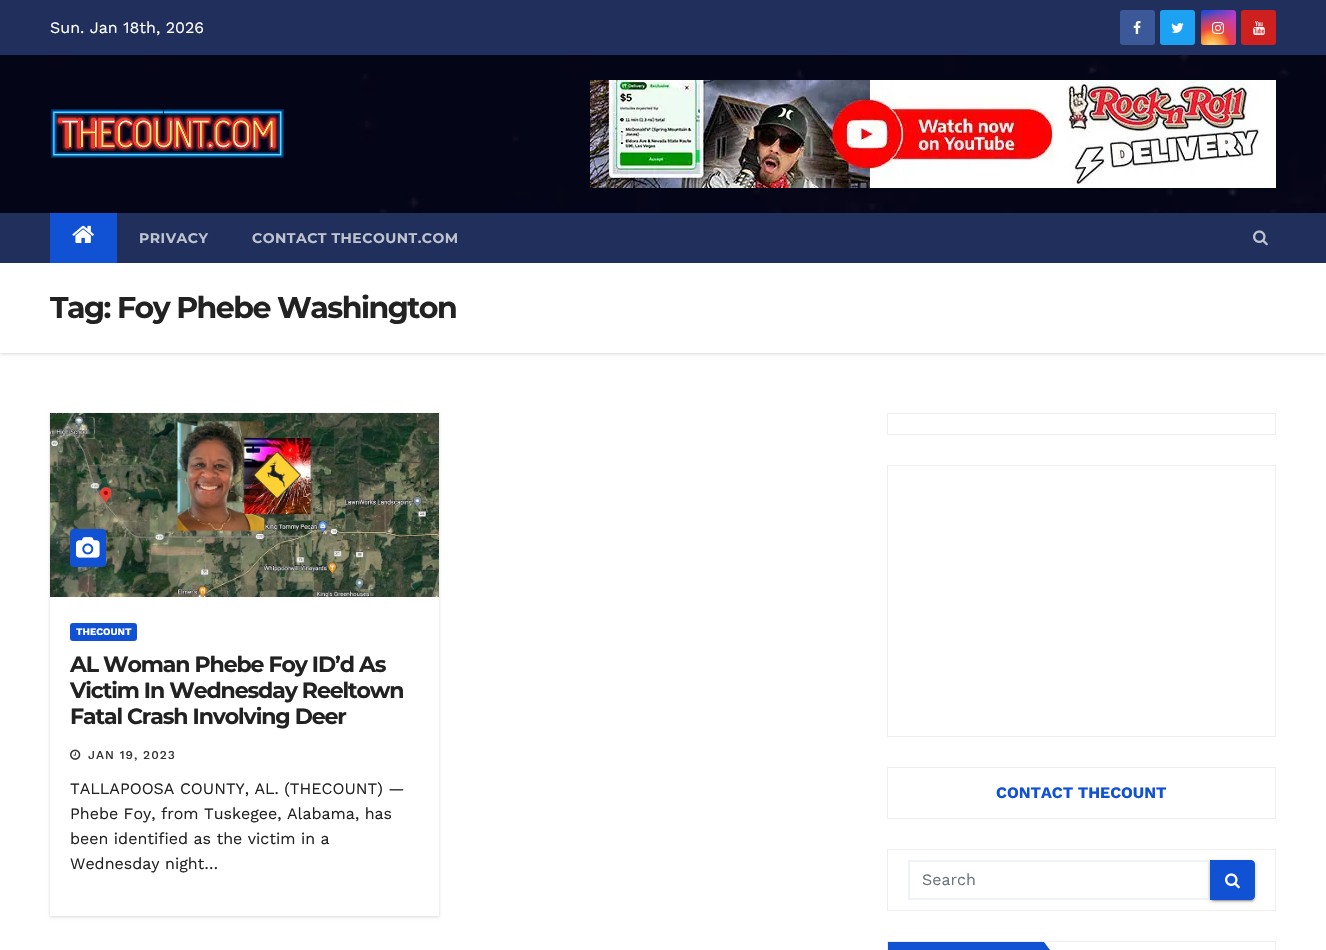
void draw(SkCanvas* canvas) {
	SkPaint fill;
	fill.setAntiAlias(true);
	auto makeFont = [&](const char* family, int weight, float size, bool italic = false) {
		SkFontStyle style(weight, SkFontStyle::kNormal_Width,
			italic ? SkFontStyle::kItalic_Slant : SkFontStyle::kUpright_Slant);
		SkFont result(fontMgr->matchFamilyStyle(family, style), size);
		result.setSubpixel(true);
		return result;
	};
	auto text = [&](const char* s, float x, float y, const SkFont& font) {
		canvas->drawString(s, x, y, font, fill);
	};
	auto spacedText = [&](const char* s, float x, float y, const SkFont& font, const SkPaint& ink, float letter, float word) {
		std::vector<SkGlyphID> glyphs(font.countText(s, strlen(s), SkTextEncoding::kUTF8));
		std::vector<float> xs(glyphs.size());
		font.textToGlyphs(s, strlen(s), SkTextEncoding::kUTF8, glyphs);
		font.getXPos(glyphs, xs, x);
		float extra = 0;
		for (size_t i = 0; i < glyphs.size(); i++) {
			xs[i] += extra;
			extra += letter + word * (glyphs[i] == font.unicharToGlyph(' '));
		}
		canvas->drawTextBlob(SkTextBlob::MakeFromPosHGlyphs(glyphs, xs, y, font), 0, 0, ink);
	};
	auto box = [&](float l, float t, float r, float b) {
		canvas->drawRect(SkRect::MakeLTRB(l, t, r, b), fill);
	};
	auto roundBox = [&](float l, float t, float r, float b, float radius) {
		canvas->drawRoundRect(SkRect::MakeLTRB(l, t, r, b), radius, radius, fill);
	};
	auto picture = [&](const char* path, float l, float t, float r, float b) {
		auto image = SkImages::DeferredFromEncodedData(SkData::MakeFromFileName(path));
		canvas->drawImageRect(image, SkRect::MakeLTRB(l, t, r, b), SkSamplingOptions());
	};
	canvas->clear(0xFFFFFFFF);
	fill.setColor(0xFF202F5B);
	box(0, 0, 1326, 55);
	fill.setColor(0xFF3B5998);
	roundBox(1120, 10, 1155, 45, 3);
	picture("image0.png", 1133, 21, 1141, 34);
	fill.setColor(0xFF1DA1F2);
	roundBox(1160, 10, 1195, 45, 3);
	picture("image1.png", 1171, 23, 1184, 33);
	{
		const SkColor colors[] = {0xFF234BD7, 0xFFC33CBE};
		const float stops[] = {0.12f, 0.58f};
		const SkPoint ends[] = {{1201, 10}, {1236, 45}};
		fill.setShader(SkGradientShader::MakeLinear(ends, colors, stops, 2, SkTileMode::kClamp));
		fill.setAlpha(255);
	}
	roundBox(1201, 10, 1236, 45, 3);
	{
		const SkColor colors[] = {0xFFFFE17D, 0xFFFFCD69, 0xFFFA9137, 0xFFEB4141, 0x00EB4141};
		const float stops[] = {0, 0.1f, 0.28f, 0.42f, 0.82f};
		fill.setShader(SkGradientShader::MakeRadial({1212, 47}, 44, colors, stops, 5, SkTileMode::kClamp));
		fill.setAlpha(255);
	}
	roundBox(1201, 10, 1236, 45, 3);
	picture("image2.png", 1212, 22, 1224, 34);
	fill.setShader(nullptr);
	fill.setColor(0xFFCD201F);
	roundBox(1241, 10, 1276, 45, 3);
	picture("image3.png", 1253, 21, 1265, 35);
	picture("image4.png", 0, 55, 1326, 213);
	picture("image5.png", 50, 109, 284, 158);
	picture("image6.png", 590, 80, 1276, 188);
	fill.setColor(0x26000000);
	fill.setMaskFilter(SkMaskFilter::MakeBlur(kNormal_SkBlurStyle, 1.5f));
	canvas->drawRect(SkRect::MakeLTRB(0, 264, 1326, 354), fill);
	fill.setMaskFilter(nullptr);
	fill.setColor(0xFF202F5B);
	box(0, 213, 1326, 263);
	fill.setColor(0xFF1151D3);
	box(50, 213, 117, 263);
	picture("image7.png", 72, 225, 94, 243);
	picture("image8.png", 1253, 230, 1268, 246);
	fill.setColor(0xFFFFFFFF);
	box(0, 263, 1326, 353);
	canvas->save();
	canvas->clipPath(SkPathBuilder(SkPathFillType::kEvenOdd).moveTo(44, 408).lineTo(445, 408).lineTo(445, 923).lineTo(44, 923).close().moveTo(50, 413).lineTo(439, 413).lineTo(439, 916).lineTo(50, 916).close().detach(), true);
	fill.setColor(0x26000000);
	fill.setMaskFilter(SkMaskFilter::MakeBlur(kNormal_SkBlurStyle, 1.5f));
	canvas->drawRect(SkRect::MakeLTRB(50, 414, 439, 917), fill);
	fill.setMaskFilter(nullptr);
	canvas->restore();
	picture("image9.png", 50, 413, 439, 597);
	fill.setColor(0xFF1151D3);
	roundBox(70, 529, 106, 567, 4);
	picture("image10.png", 76, 537, 100, 558);
	roundBox(70, 623, 137, 641, 3);
	picture("image11.png", 70, 749, 81, 760);
	fill.setStyle(SkPaint::kStroke_Style);
	fill.setStrokeWidth(1);
	fill.setColor(0xFFEEEEEE);
	canvas->drawRect(SkRect::MakeLTRB(887.5f, 413.5f, 1275.5f, 434.5f), fill);
	canvas->drawRect(SkRect::MakeLTRB(887.5f, 465.5f, 1275.5f, 736.5f), fill);
	canvas->drawRect(SkRect::MakeLTRB(887.5f, 767.5f, 1275.5f, 818.5f), fill);
	canvas->drawRect(SkRect::MakeLTRB(887.5f, 849.5f, 1275.5f, 910.5f), fill);
	fill.setStrokeWidth(2);
	fill.setColor(0xFFEEF3FB);
	canvas->drawRect(SkRect::MakeLTRB(909, 861, 1209, 899), fill);
	fill.setStyle(SkPaint::kFill_Style);
	fill.setColor(0x1F000000);
	fill.setMaskFilter(SkMaskFilter::MakeBlur(kNormal_SkBlurStyle, 2.5f));
	canvas->drawRoundRect(SkRect::MakeLTRB(1210, 861, 1255, 901), 4, 4, fill);
	fill.setMaskFilter(nullptr);
	fill.setColor(0x33000000);
	fill.setMaskFilter(SkMaskFilter::MakeBlur(kNormal_SkBlurStyle, 0.5f));
	canvas->drawRoundRect(SkRect::MakeLTRB(1212, 865, 1253, 901), 2, 2, fill);
	fill.setMaskFilter(nullptr);
	fill.setColor(0x24000000);
	fill.setMaskFilter(SkMaskFilter::MakeBlur(kNormal_SkBlurStyle, 1));
	canvas->drawRoundRect(SkRect::MakeLTRB(1210, 862, 1255, 902), 4, 4, fill);
	fill.setMaskFilter(nullptr);
	fill.setColor(0xFF1151D3);
	canvas->drawPath(SkPathBuilder().moveTo(1210, 860).lineTo(1251, 860).cubicTo(1253, 860, 1255, 862, 1255, 864).lineTo(1255, 896).cubicTo(1255, 898, 1253, 900, 1251, 900).lineTo(1210, 900).close().detach(), fill);
	picture("image12.png", 1225, 873, 1240, 889);
	fill.setStyle(SkPaint::kStroke_Style);
	fill.setStrokeWidth(1);
	fill.setColor(0xFFEEEEEE);
	canvas->drawRect(SkRect::MakeLTRB(887.5f, 941.5f, 1275.5f, 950.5f), fill);
	fill.setStyle(SkPaint::kFill_Style);
	fill.setColor(0xFF1151D3);
	box(888, 942, 1044, 950);
	canvas->drawPath(SkPathBuilder().moveTo(1044, 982).lineTo(1044, 942).lineTo(1074, 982).close().detach(), fill);
	auto font1 = makeFont("Work Sans", 400, 16);
	fill.setColor(0xFFFFFFFF);
	text("Sun. Jan 18th, 2026", 50, 33, font1);
	auto font2 = makeFont("Montserrat", 700, 14);
	fill.setColor(0xFFBEC3CF);
	spacedText("PRIVACY", 139, 243, font2, fill, 0.5f, 0);
	spacedText("CONTACT THECOUNT.COM", 252, 243, font2, fill, 0.5f, 0);
	auto font3 = makeFont("Montserrat", 700, 30);
	fill.setColor(0xFF222222);
	spacedText("Tag: Foy Phebe Washington", 50, 318, font3, fill, -1.5f, 0);
	auto font4 = makeFont("Work Sans", 700, 10);
	fill.setColor(0xFFFFFFFF);
	text("THECOUNT", 76, 635, font4);
	auto font5 = makeFont("Montserrat", 700, 22);
	fill.setColor(0xFF222222);
	spacedText("AL Woman Phebe Foy ID’d As", 70, 672, font5, fill, -1.1f, 0);
	spacedText("Victim In Wednesday Reeltown", 70, 698, font5, fill, -1.1f, 0);
	spacedText("Fatal Crash Involving Deer", 70, 724, font5, fill, -1.1f, 0);
	auto font6 = makeFont("Work Sans", 500, 12);
	fill.setColor(0xFF333333);
	spacedText("JAN 19, 2023", 88, 759, font6, fill, 1, 0);
	fill.setColor(0xFF222222);
	text("TALLAPOOSA COUNTY, AL. (THECOUNT) —", 70, 794, font1);
	text("Phebe Foy, from Tuskegee, Alabama, has", 70, 819, font1);
	text("been identified as the victim in a", 70, 844, font1);
	text("Wednesday night…", 70, 869, font1);
	auto font7 = makeFont("Work Sans", 700, 16);
	fill.setColor(0xFF1151D3);
	text("CONTACT THECOUNT", 996, 798, font7);
	fill.setColor(0xFF6C757D);
	text("Search", 922, 885, font1);
}
